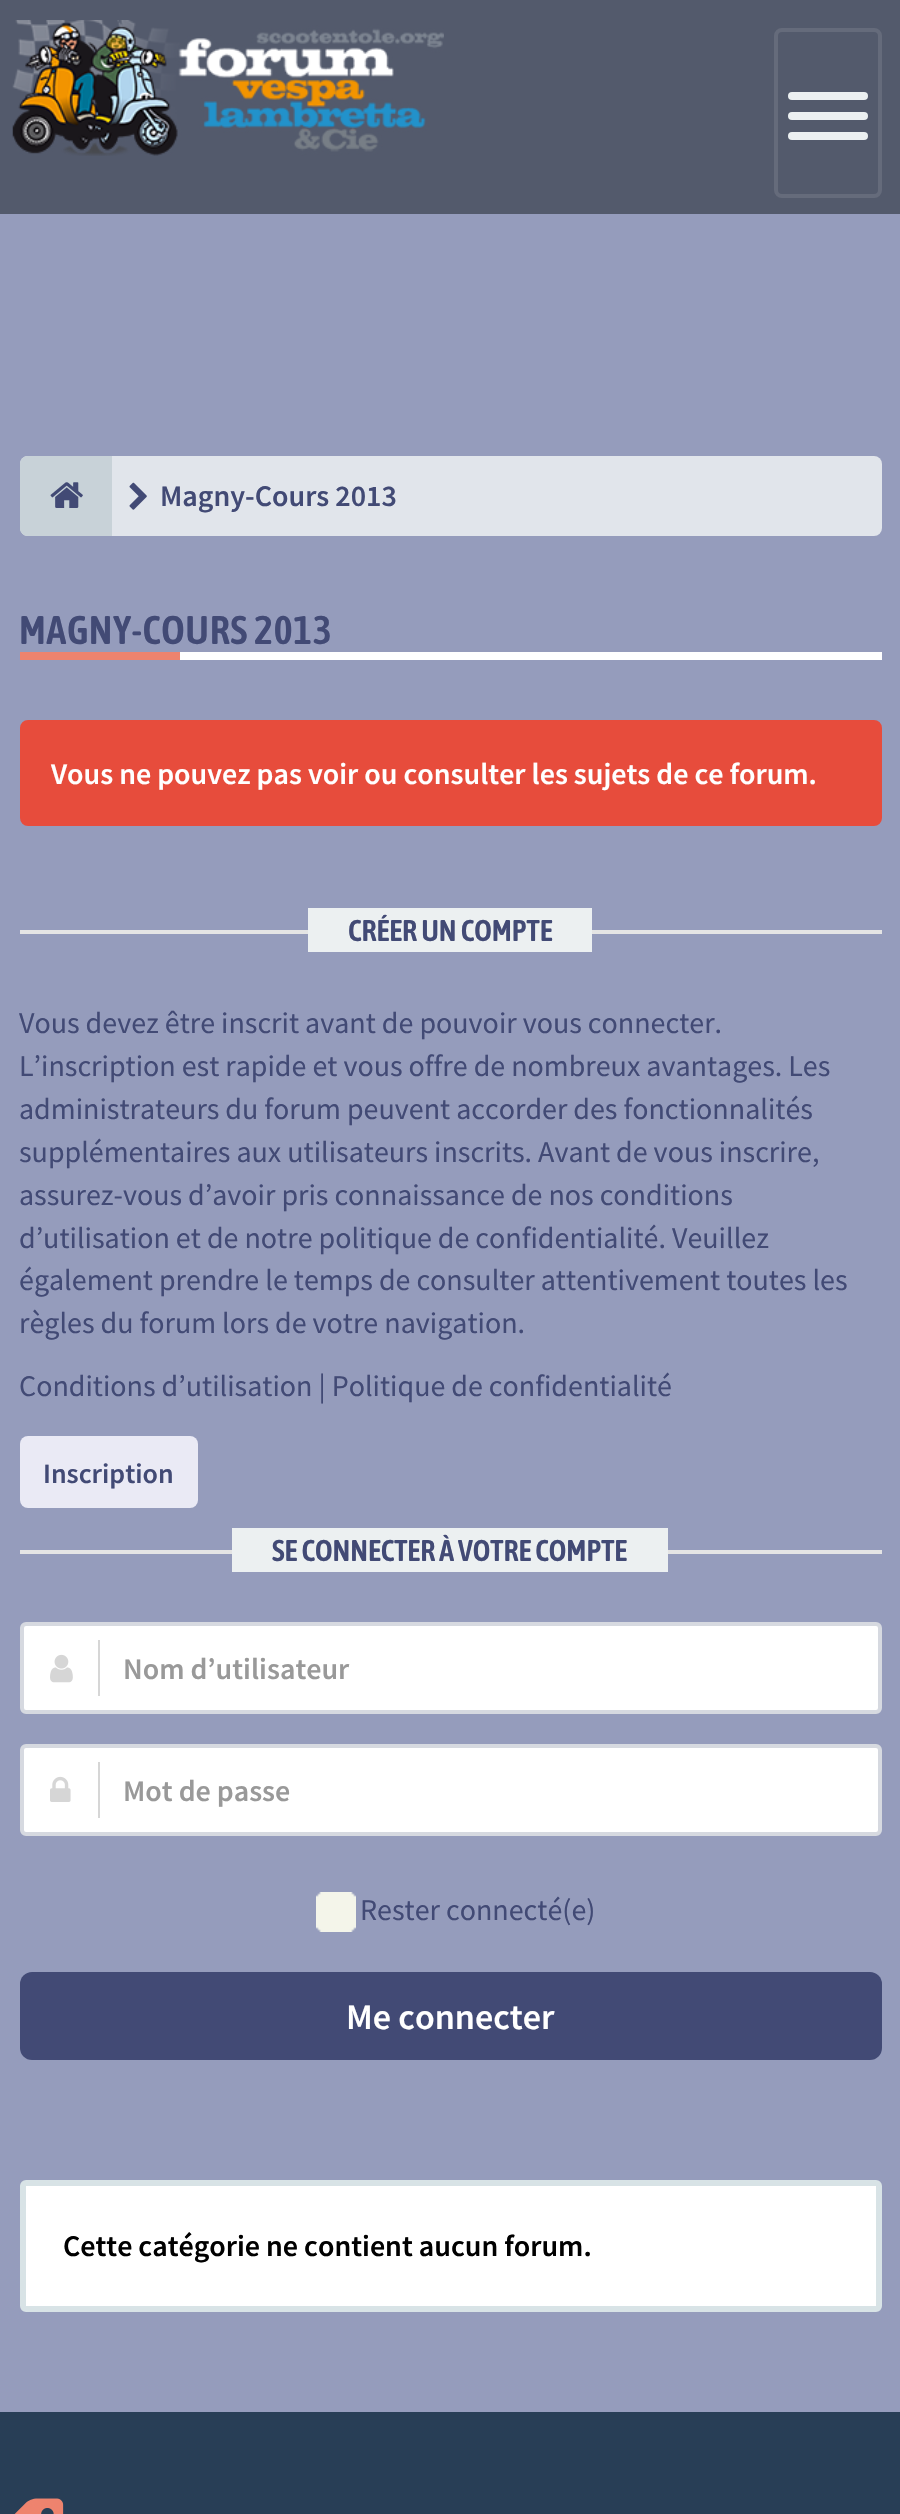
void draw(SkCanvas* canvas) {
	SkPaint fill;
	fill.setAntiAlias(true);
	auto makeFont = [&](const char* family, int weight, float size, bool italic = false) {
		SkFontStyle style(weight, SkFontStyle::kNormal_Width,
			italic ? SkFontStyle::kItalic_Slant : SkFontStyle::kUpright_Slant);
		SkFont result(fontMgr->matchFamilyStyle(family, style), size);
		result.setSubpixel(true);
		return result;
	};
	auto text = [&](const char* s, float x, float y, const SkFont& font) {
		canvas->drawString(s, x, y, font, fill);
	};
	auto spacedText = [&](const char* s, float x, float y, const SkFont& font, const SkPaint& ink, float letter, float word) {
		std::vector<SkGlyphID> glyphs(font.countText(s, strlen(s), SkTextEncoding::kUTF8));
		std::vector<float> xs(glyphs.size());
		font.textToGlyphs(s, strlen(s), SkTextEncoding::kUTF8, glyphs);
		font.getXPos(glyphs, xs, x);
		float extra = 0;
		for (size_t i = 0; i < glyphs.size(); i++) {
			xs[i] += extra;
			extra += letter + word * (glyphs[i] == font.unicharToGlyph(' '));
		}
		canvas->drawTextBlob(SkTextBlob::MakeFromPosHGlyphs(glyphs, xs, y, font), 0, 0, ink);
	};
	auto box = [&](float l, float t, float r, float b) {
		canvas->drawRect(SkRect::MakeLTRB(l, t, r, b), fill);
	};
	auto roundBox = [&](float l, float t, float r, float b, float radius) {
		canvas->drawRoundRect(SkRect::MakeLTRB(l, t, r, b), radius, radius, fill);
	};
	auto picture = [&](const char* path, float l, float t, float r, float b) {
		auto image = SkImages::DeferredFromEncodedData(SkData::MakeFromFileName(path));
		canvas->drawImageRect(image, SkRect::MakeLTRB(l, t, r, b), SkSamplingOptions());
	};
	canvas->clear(0xFF959CBC);
	fill.setColor(0xFF535A6C);
	box(0, 0, 900, 214);
	picture("image0.png", 12, 20, 444, 156);
	fill.setStyle(SkPaint::kStroke_Style);
	fill.setStrokeWidth(4);
	fill.setColor(0xFF656B7B);
	canvas->drawRoundRect(SkRect::MakeLTRB(776, 30, 880, 196), 6, 6, fill);
	fill.setStyle(SkPaint::kFill_Style);
	fill.setColor(0xFFECF0F1);
	roundBox(788, 112, 868, 120, 4);
	roundBox(788, 92, 868, 100, 4);
	roundBox(788, 132, 868, 140, 4);
	fill.setColor(0xFFE1E5EB);
	roundBox(20, 456, 882, 536, 8);
	fill.setColor(0xFFC8D2D8);
	canvas->drawPath(SkPathBuilder().moveTo(28, 456).lineTo(112, 456).lineTo(112, 536).lineTo(28, 536).cubicTo(23.5f, 536, 20, 532.5f, 20, 528).lineTo(20, 464).cubicTo(20, 459.5f, 23.5f, 456, 28, 456).close().detach(), fill);
	picture("image1.png", 50, 482, 83, 508);
	picture("image2.png", 129, 482, 147, 510);
	fill.setColor(0xFFFFFFFF);
	box(180, 652, 882, 660);
	fill.setColor(0xFFEE836E);
	box(20, 652, 180, 660);
	fill.setColor(0xFFE74C3C);
	canvas->drawRoundRect(SkRect::MakeLTRB(21, 721, 881, 825), 7, 7, fill);
	fill.setStyle(SkPaint::kStroke_Style);
	fill.setStrokeWidth(2);
	canvas->drawRoundRect(SkRect::MakeLTRB(21, 721, 881, 825), 7, 7, fill);
	fill.setStyle(SkPaint::kFill_Style);
	fill.setColor(0xFFE4E4E4);
	box(20, 930, 882, 934);
	fill.setColor(0xFFECF0F1);
	box(308, 908, 592, 952);
	fill.setColor(0xFFEAEAF5);
	roundBox(20, 1436, 198, 1508, 8);
	fill.setColor(0xFFE4E4E4);
	box(20, 1550, 882, 1554);
	fill.setColor(0xFFECF0F1);
	box(232, 1528, 668, 1572);
	fill.setColor(0xFFFFFFFF);
	canvas->drawRoundRect(SkRect::MakeLTRB(22, 1624, 880, 1712), 4, 4, fill);
	fill.setStyle(SkPaint::kStroke_Style);
	fill.setStrokeWidth(4);
	fill.setColor(0xFFD6D9E0);
	canvas->drawRoundRect(SkRect::MakeLTRB(22, 1624, 880, 1712), 4, 4, fill);
	fill.setStyle(SkPaint::kFill_Style);
	fill.setColor(0xFFD6D6D6);
	box(98, 1640, 100, 1696);
	picture("image3.png", 50, 1654, 73, 1683);
	fill.setColor(0xFFFFFFFF);
	canvas->drawRoundRect(SkRect::MakeLTRB(22, 1746, 880, 1834), 4, 4, fill);
	fill.setStyle(SkPaint::kStroke_Style);
	fill.setColor(0xFFD6D9E0);
	canvas->drawRoundRect(SkRect::MakeLTRB(22, 1746, 880, 1834), 4, 4, fill);
	fill.setStyle(SkPaint::kFill_Style);
	fill.setColor(0xFFD6D6D6);
	box(98, 1762, 100, 1818);
	picture("image4.png", 50, 1776, 71, 1802);
	picture("image5.png", 316, 1892, 356, 1932);
	fill.setColor(0xFF424A75);
	roundBox(20, 1972, 882, 2060, 12);
	fill.setColor(0xFFFFFFFF);
	canvas->drawRoundRect(SkRect::MakeLTRB(23, 2183, 879, 2309), 3, 3, fill);
	fill.setStyle(SkPaint::kStroke_Style);
	fill.setStrokeWidth(6);
	fill.setColor(0xFFD8E3E6);
	canvas->drawRoundRect(SkRect::MakeLTRB(23, 2183, 879, 2309), 3, 3, fill);
	fill.setStyle(SkPaint::kFill_Style);
	fill.setColor(0xFF283E56);
	box(0, 2412, 900, 2514);
	picture("image6.png", 14, 2498, 64, 2514);
	auto font1 = makeFont("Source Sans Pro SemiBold", 600, 30);
	fill.setColor(0xFF424A75);
	text("Magny-Cours 2013", 160, 506, font1);
	auto font2 = makeFont("Asap Condensed", 600, 40);
	spacedText("MAGNY-COURS 2013", 19, 644, font2, fill, 0.75f, 0);
	fill.setColor(0xFFFFFFFF);
	text("Vous ne pouvez pas voir ou consulter les sujets de ce forum.", 51, 784, font1);
	auto font3 = makeFont("Asap Condensed", 600, 30);
	fill.setColor(0xFF424A75);
	text("CRÉER UN COMPTE", 348, 941, font3);
	auto font4 = makeFont("Source Sans Pro", 400, 30);
	text("Vous devez être inscrit avant de pouvoir vous connecter.", 19, 1033, font4);
	text("L’inscription est rapide et vous offre de nombreux avantages. Les", 19, 1076, font4);
	text("administrateurs du forum peuvent accorder des fonctionnalités", 19, 1119, font4);
	text("supplémentaires aux utilisateurs inscrits. Avant de vous inscrire,", 19, 1162, font4);
	text("assurez-vous d’avoir pris connaissance de nos conditions", 19, 1205, font4);
	text("d’utilisation et de notre politique de confidentialité. Veuillez", 19, 1248, font4);
	text("également prendre le temps de consulter attentivement toutes les", 19, 1290, font4);
	text("règles du forum lors de votre navigation.", 19, 1333, font4);
	text("Conditions d’utilisation | Politique de confidentialité", 19, 1396, font4);
	auto font5 = makeFont("Source Sans Pro SemiBold", 600, 28);
	text("Inscription", 43, 1483, font5);
	text("SE CONNECTER À VOTRE COMPTE", 272, 1561, font3);
	fill.setColor(0xFF999999);
	text("Nom d’utilisateur", 123, 1679, font1);
	text("Mot de passe", 123, 1801, font1);
	fill.setColor(0xFF424A75);
	text("Rester connecté(e)", 360, 1920, font4);
	auto font6 = makeFont("Source Sans Pro SemiBold", 600, 36);
	fill.setColor(0xFFFFFFFF);
	text("Me connecter", 346, 2029, font6);
	fill.setColor(0xFF000000);
	text("Cette catégorie ne contient aucun forum.", 63, 2256, font1);
}
